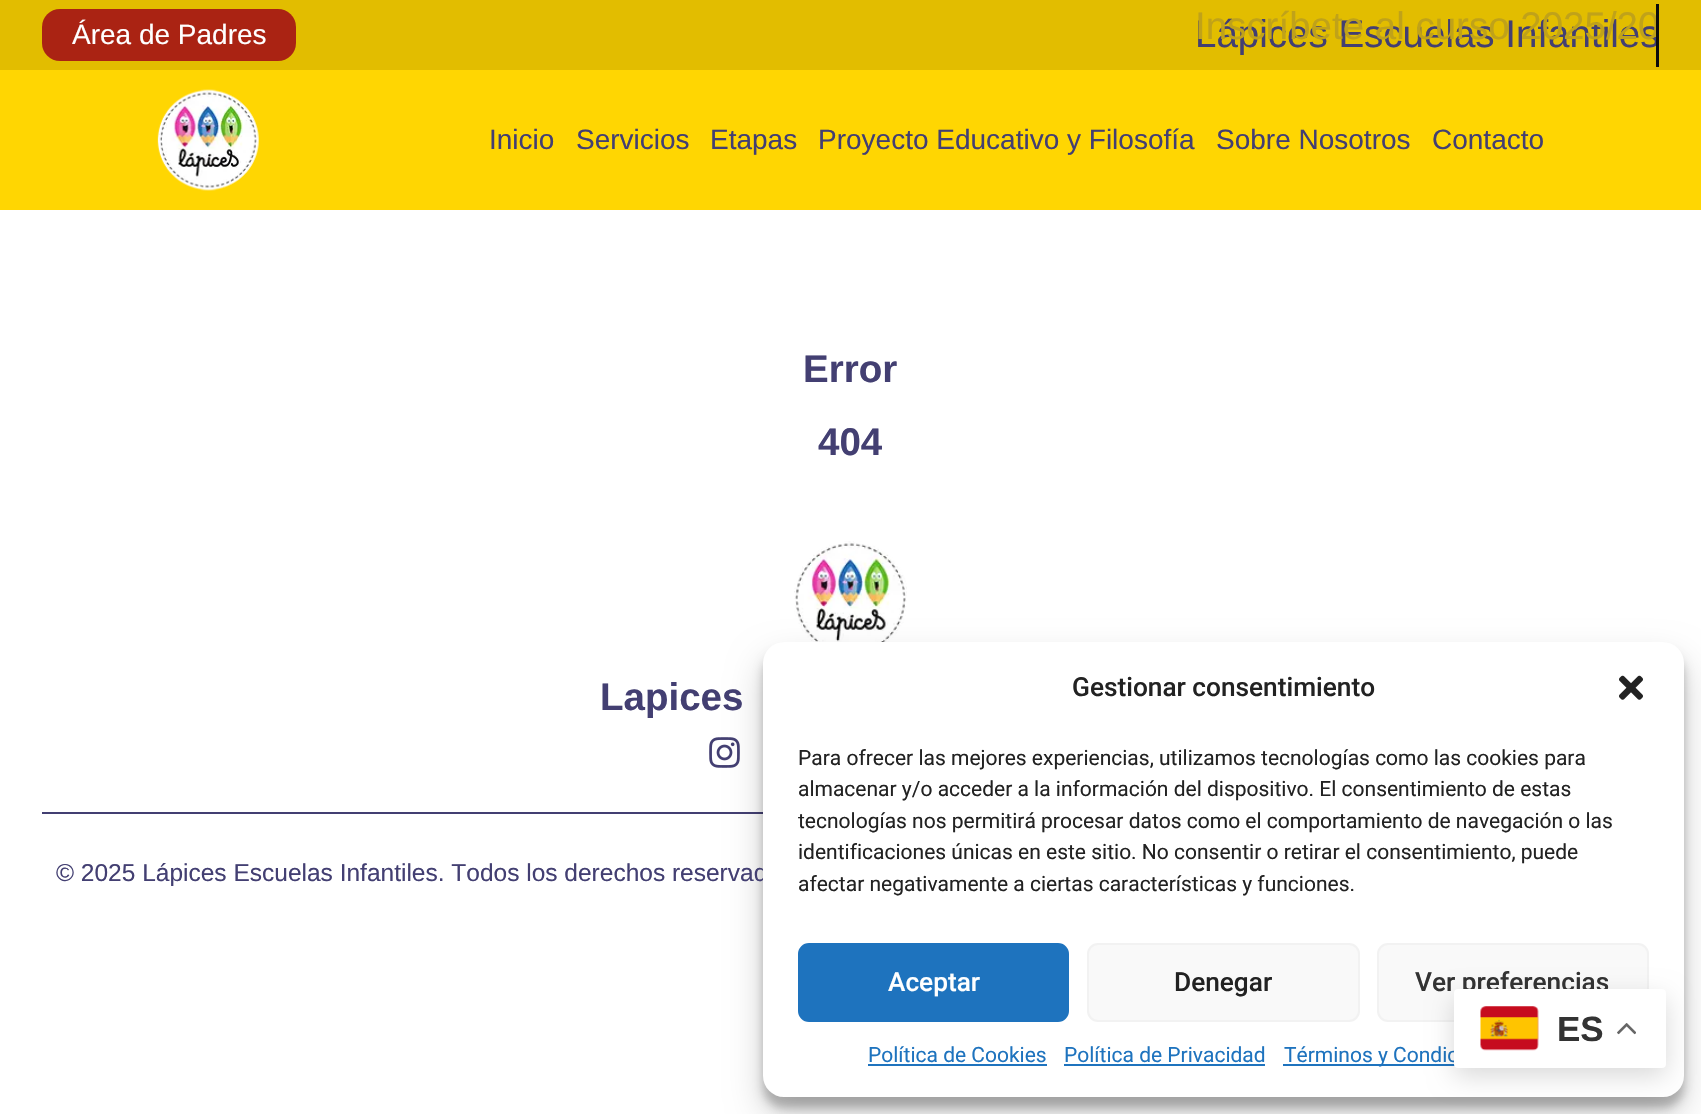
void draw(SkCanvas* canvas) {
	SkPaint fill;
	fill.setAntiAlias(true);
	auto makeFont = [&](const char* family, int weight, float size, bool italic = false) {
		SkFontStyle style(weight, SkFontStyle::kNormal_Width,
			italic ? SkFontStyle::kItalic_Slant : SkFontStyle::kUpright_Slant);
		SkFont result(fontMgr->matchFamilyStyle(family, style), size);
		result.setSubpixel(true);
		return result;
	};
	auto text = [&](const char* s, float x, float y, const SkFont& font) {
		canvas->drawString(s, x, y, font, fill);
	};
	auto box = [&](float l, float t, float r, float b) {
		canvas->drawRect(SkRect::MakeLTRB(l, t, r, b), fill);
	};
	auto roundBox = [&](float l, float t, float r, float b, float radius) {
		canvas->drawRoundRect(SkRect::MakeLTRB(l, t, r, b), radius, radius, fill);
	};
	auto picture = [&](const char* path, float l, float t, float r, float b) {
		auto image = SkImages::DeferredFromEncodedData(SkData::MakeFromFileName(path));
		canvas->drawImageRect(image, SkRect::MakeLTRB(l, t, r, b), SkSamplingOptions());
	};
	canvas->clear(0xFFFFFFFF);
	fill.setColor(0xFFE2BD00);
	box(0, 0, 1701, 70);
	fill.setColor(0xFFAA2313);
	roundBox(42, 9, 296, 61, 18);
	fill.setColor(0xFFFFD602);
	box(0, 70, 1701, 210);
	picture("image0.png", 157, 89, 259, 191);
	fill.setColor(0xFF433F72);
	box(42, 812, 763, 814);
	picture("image1.png", 794, 541, 907, 642);
	picture("image2.png", 709, 737, 740, 768);
	fill.setColor(0x3B000000);
	fill.setMaskFilter(SkMaskFilter::MakeBlur(kNormal_SkBlurStyle, 5));
	canvas->drawRoundRect(SkRect::MakeLTRB(763, 653, 1684, 1108), 21, 21, fill);
	fill.setMaskFilter(nullptr);
	fill.setColor(0x30000000);
	fill.setMaskFilter(SkMaskFilter::MakeBlur(kNormal_SkBlurStyle, 17.5f));
	canvas->drawRoundRect(SkRect::MakeLTRB(763, 660, 1684, 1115), 21, 21, fill);
	fill.setMaskFilter(nullptr);
	auto font1 = makeFont("Liberation Sans", 400, 28);
	fill.setColor(0xFFFFFFFF);
	text("Área de Padres", 72, 44, font1);
	auto font2 = makeFont("Liberation Sans", 400, 38.5f);
	fill.setColor(0xFF433F72);
	text("Lápices Escuelas Infantiles", 1195, 47, font2);
	fill.setColor(0xFFC0A219);
	text("Inscríbete al curso 2025/20", 1195, 39, font2);
	fill.setColor(0xFF0D0D0D);
	box(1656, 4, 1659, 67);
	fill.setColor(0xFF433F72);
	text("Inicio", 489, 149, font1);
	text("Servicios", 576, 149, font1);
	text("Etapas", 710, 149, font1);
	text("Proyecto Educativo y Filosofía", 818, 149, font1);
	text("Sobre Nosotros", 1216, 149, font1);
	text("Contacto", 1432, 149, font1);
	auto font3 = makeFont("Liberation Sans", 700, 38.5f);
	text("Error", 803, 382, font3);
	text("404", 818, 455, font3);
	text("Lapices", 600, 710, font3);
	auto font4 = makeFont("Liberation Sans", 400, 24.5f);
	text("© 2025 Lápices Escuelas Infantiles. Todos los derechos reservad", 56, 881, font4);
	fill.setColor(0xFFFFFFFF);
	roundBox(763, 642, 1684, 1097, 21);
	auto font5 = makeFont("Roboto", 500, 26.25f);
	fill.setColor(0xFF222222);
	text("Gestionar consentimiento", 1072, 696, font5);
	picture("image3.png", 1619, 675, 1643, 700);
	auto font6 = makeFont("Roboto", 400, 21);
	text("Para ofrecer las mejores experiencias, utilizamos tecnologías como las cookies para", 798, 765, font6);
	text("almacenar y/o acceder a la información del dispositivo. El consentimiento de estas", 798, 796, font6);
	text("tecnologías nos permitirá procesar datos como el comportamiento de navegación o las", 798, 828, font6);
	text("identificaciones únicas en este sitio. No consentir o retirar el consentimiento, puede", 798, 859, font6);
	text("afectar negativamente a ciertas características y funciones.", 798, 891, font6);
	fill.setColor(0xFF1E73BE);
	canvas->drawRoundRect(SkRect::MakeLTRB(799, 944, 1068, 1021), 10, 10, fill);
	fill.setStyle(SkPaint::kStroke_Style);
	fill.setStrokeWidth(2);
	canvas->drawRoundRect(SkRect::MakeLTRB(799, 944, 1068, 1021), 10, 10, fill);
	fill.setStyle(SkPaint::kFill_Style);
	fill.setColor(0xFFFFFFFF);
	text("Aceptar", 888, 991, font5);
	fill.setColor(0xFFF9F9F9);
	canvas->drawRoundRect(SkRect::MakeLTRB(1088, 944, 1359, 1021), 10, 10, fill);
	fill.setStyle(SkPaint::kStroke_Style);
	fill.setColor(0xFFF2F2F2);
	canvas->drawRoundRect(SkRect::MakeLTRB(1088, 944, 1359, 1021), 10, 10, fill);
	fill.setStyle(SkPaint::kFill_Style);
	fill.setColor(0xFF222222);
	text("Denegar", 1174, 991, font5);
	fill.setColor(0xFFF9F9F9);
	canvas->drawRoundRect(SkRect::MakeLTRB(1378, 944, 1648, 1021), 10, 10, fill);
	fill.setStyle(SkPaint::kStroke_Style);
	fill.setColor(0xFFF2F2F2);
	canvas->drawRoundRect(SkRect::MakeLTRB(1378, 944, 1648, 1021), 10, 10, fill);
	fill.setStyle(SkPaint::kFill_Style);
	fill.setColor(0xFF333333);
	text("Ver preferencias", 1415, 991, font5);
	fill.setColor(0xFF1E73BE);
	text("Política de Cookies", 868, 1062, font6);
	box(868, 1064, 1047, 1066);
	text("Política de Privacidad", 1064, 1062, font6);
	box(1064, 1064, 1265, 1066);
	box(1283, 1064, 1455, 1066);
	text("Términos y Condic", 1284, 1062, font6);
	fill.setColor(0x26000000);
	fill.setMaskFilter(SkMaskFilter::MakeBlur(kNormal_SkBlurStyle, 13));
	canvas->drawRoundRect(SkRect::MakeLTRB(1454, 998, 1666, 1076), 4, 4, fill);
	fill.setMaskFilter(nullptr);
	fill.setColor(0xFFFFFFFF);
	roundBox(1454, 989, 1666, 1068, 4);
	picture("image4.png", 1480, 1006, 1539, 1051);
	auto font7 = makeFont("Liberation Sans", 700, 35);
	fill.setColor(0xFF333333);
	text("ES", 1557, 1041, font7);
	picture("image5.png", 1617, 1023, 1636, 1035);
}
